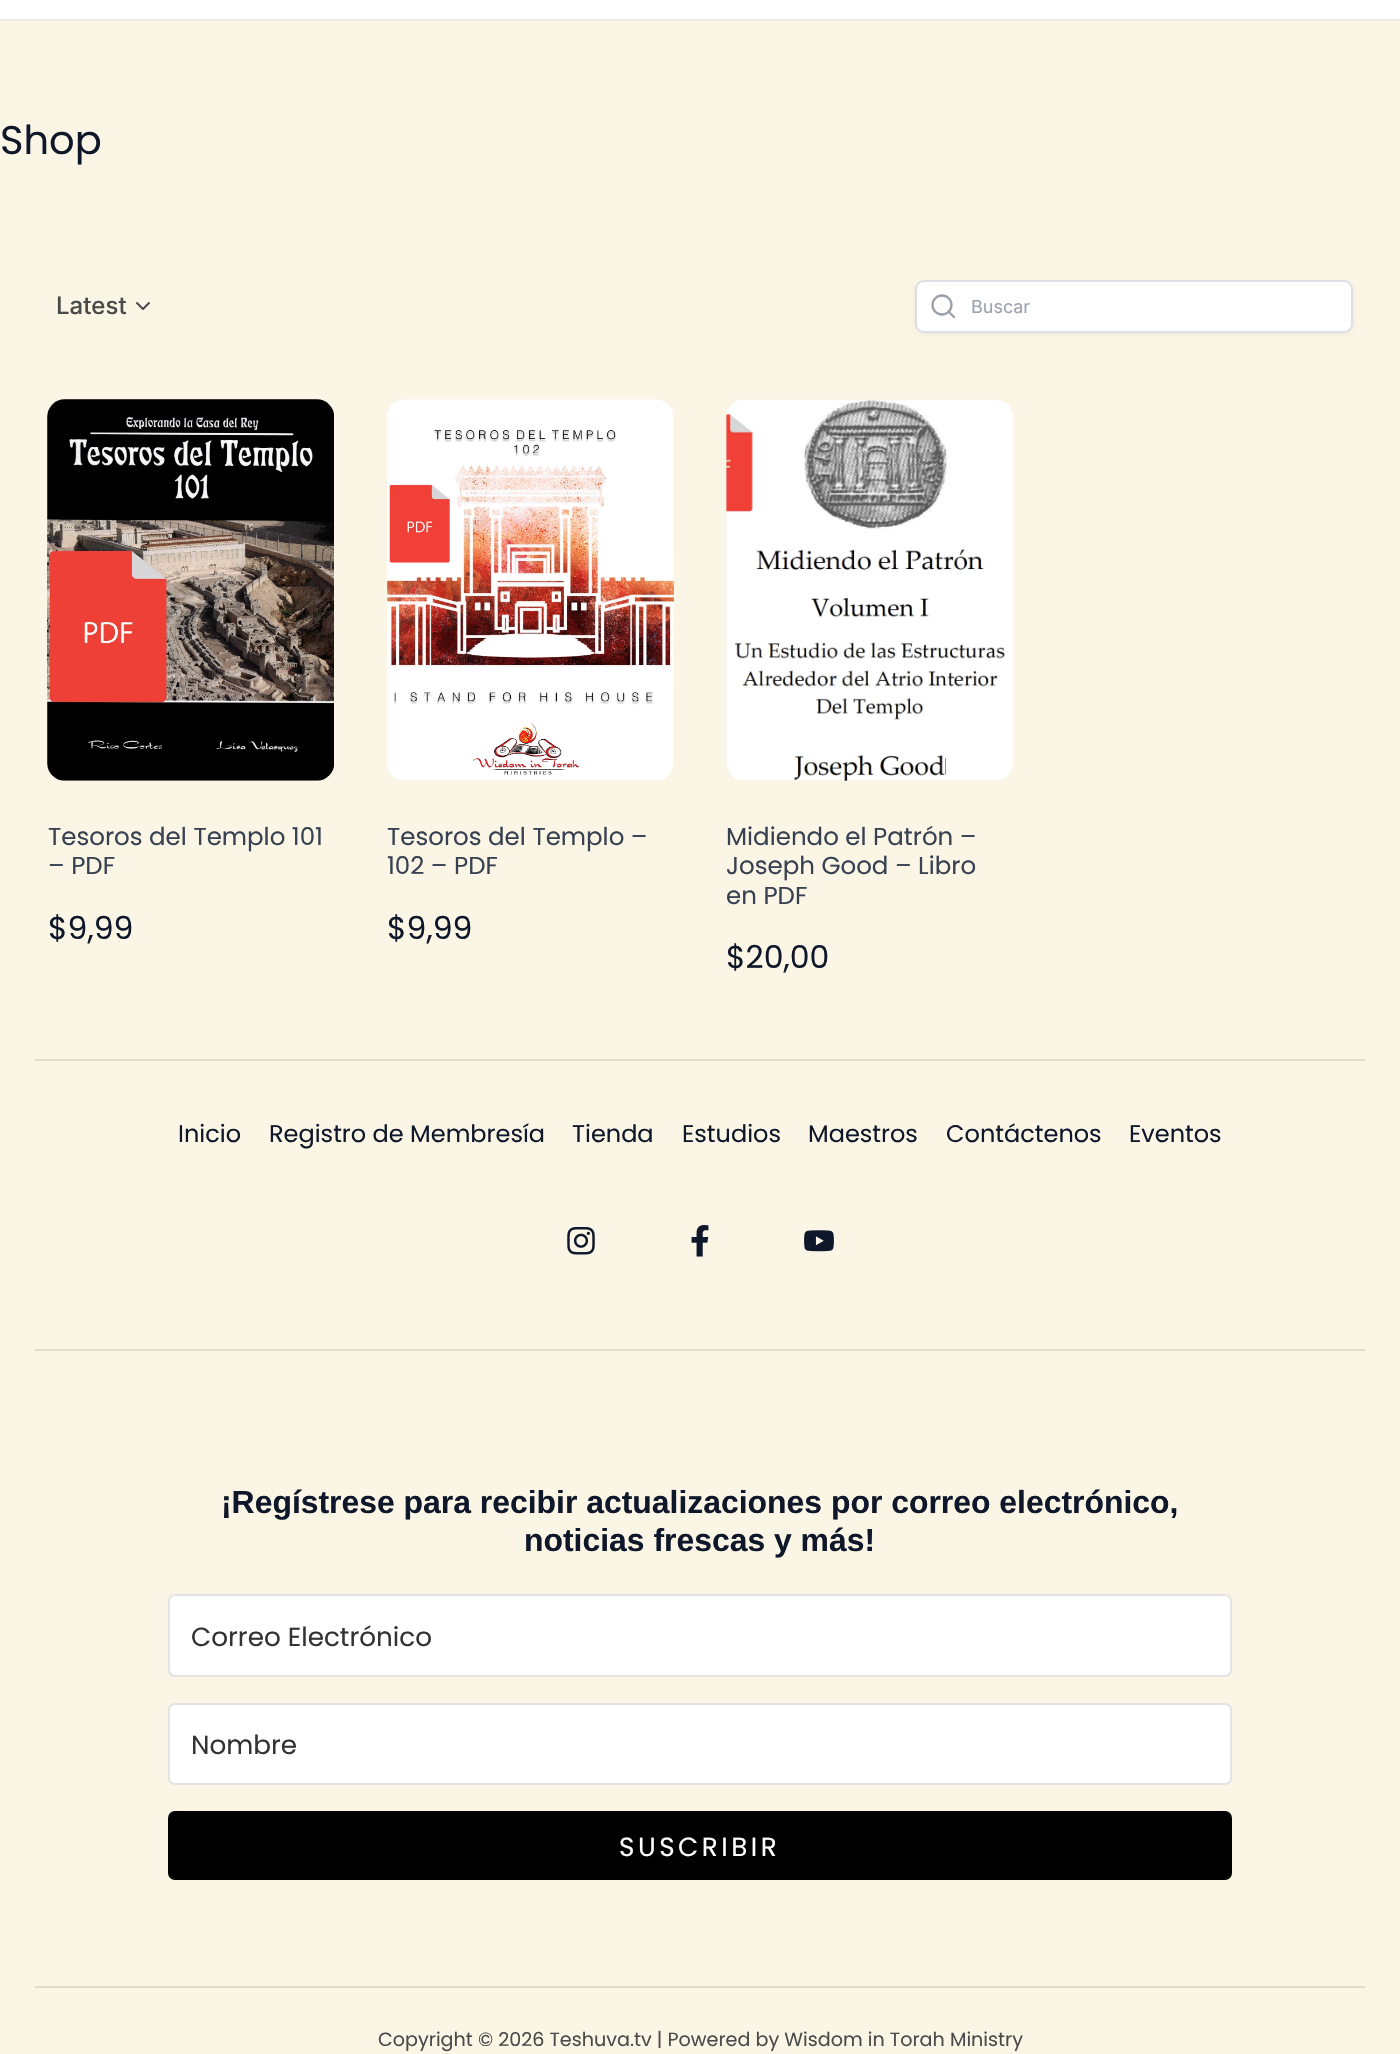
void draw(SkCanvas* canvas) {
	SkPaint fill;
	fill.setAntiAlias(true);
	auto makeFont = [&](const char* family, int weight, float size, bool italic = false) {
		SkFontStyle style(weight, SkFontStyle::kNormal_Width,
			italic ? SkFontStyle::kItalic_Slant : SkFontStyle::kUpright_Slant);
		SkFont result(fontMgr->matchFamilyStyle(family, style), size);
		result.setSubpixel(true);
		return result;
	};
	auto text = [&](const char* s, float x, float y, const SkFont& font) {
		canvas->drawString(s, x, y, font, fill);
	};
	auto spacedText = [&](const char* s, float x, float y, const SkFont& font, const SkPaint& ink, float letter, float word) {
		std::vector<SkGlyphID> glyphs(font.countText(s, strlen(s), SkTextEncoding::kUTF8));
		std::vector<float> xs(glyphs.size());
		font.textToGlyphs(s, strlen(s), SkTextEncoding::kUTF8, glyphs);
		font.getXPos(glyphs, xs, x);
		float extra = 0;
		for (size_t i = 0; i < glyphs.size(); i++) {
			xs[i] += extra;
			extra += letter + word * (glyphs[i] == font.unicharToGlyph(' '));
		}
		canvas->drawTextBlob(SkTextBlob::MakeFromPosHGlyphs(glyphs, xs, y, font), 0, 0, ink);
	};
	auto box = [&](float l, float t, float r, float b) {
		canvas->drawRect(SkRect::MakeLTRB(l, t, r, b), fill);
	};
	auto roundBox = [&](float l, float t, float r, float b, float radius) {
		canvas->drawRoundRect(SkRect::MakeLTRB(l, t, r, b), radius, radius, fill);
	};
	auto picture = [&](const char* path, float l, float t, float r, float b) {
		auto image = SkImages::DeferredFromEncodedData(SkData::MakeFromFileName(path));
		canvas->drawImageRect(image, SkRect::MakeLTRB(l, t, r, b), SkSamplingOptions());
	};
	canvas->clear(0xFFFAF5E5);
	fill.setColor(0xFFFFFFFF);
	box(0, 0, 1400, 19);
	fill.setColor(0xFFEAEAEA);
	box(0, 19, 1400, 21);
	fill.setStyle(SkPaint::kStroke_Style);
	fill.setStrokeWidth(2);
	fill.setStrokeCap(SkPaint::kRound_Cap);
	fill.setStrokeJoin(SkPaint::kRound_Join);
	fill.setColor(0xFF4A4A4A);
	canvas->drawPath(SkPathBuilder().moveTo(137, 303).lineTo(143, 309).lineTo(149, 303).detach(), fill);
	fill.setStyle(SkPaint::kFill_Style);
	fill.setColor(0x0D000000);
	fill.setMaskFilter(SkMaskFilter::MakeBlur(kNormal_SkBlurStyle, 2));
	canvas->drawRoundRect(SkRect::MakeLTRB(915, 282, 1353, 334), 9, 9, fill);
	fill.setMaskFilter(nullptr);
	fill.setColor(0xFFFFFFFF);
	canvas->drawRoundRect(SkRect::MakeLTRB(916, 281, 1352, 332), 8, 8, fill);
	fill.setStyle(SkPaint::kStroke_Style);
	fill.setStrokeCap(SkPaint::kButt_Cap);
	fill.setStrokeJoin(SkPaint::kMiter_Join);
	fill.setColor(0xFFDCE0E6);
	canvas->drawRoundRect(SkRect::MakeLTRB(916, 281, 1352, 332), 8, 8, fill);
	fill.setStrokeWidth(2.3f);
	fill.setColor(0xFF9BA0A8);
	canvas->drawCircle(942, 305, 9.5f, fill);
	fill.setStrokeCap(SkPaint::kRound_Cap);
	fill.setStrokeJoin(SkPaint::kRound_Join);
	canvas->drawPath(SkPathBuilder().moveTo(954, 317).lineTo(948.5f, 311.5f).detach(), fill);
	fill.setStyle(SkPaint::kFill_Style);
	fill.setColor(0xFFEEE8D9);
	roundBox(47, 399, 334, 781, 18);
	picture("image0.png", 47, 399, 334, 781);
	roundBox(387, 399, 674, 781, 18);
	picture("image1.png", 387, 399, 674, 781);
	roundBox(726, 399, 1013, 781, 18);
	picture("image2.png", 726, 399, 1013, 781);
	fill.setColor(0xFFE1DDCE);
	box(35, 1059, 1365, 1061);
	picture("image3.png", 567, 1226, 595, 1255);
	picture("image4.png", 691, 1225, 709, 1257);
	picture("image5.png", 804, 1230, 834, 1252);
	box(35, 1349, 1365, 1351);
	fill.setColor(0xFFFFFFFF);
	canvas->drawRoundRect(SkRect::MakeLTRB(169, 1595, 1231, 1676), 6, 6, fill);
	fill.setStyle(SkPaint::kStroke_Style);
	fill.setStrokeWidth(2);
	fill.setStrokeCap(SkPaint::kButt_Cap);
	fill.setStrokeJoin(SkPaint::kMiter_Join);
	fill.setColor(0xFFE3E3E3);
	canvas->drawRoundRect(SkRect::MakeLTRB(169, 1595, 1231, 1676), 6, 6, fill);
	fill.setStyle(SkPaint::kFill_Style);
	fill.setColor(0xFFFFFFFF);
	canvas->drawRoundRect(SkRect::MakeLTRB(169, 1704, 1231, 1784), 6, 6, fill);
	fill.setStyle(SkPaint::kStroke_Style);
	fill.setColor(0xFFE3E3E3);
	canvas->drawRoundRect(SkRect::MakeLTRB(169, 1704, 1231, 1784), 6, 6, fill);
	fill.setStyle(SkPaint::kFill_Style);
	fill.setColor(0xFF000000);
	roundBox(168, 1811, 1232, 1880, 7);
	fill.setColor(0xFFE1DDCE);
	box(35, 1986, 1365, 1988);
	auto font1 = makeFont("Poppins", 400, 40);
	fill.setColor(0xFF0F172A);
	text("Shop", 0, 154, font1);
	auto font2 = makeFont("Inter", 500, 24);
	fill.setColor(0xFF4A4A4A);
	text("Latest", 56, 314, font2);
	auto font3 = makeFont("Inter", 400, 18);
	fill.setColor(0xFF9CA3AF);
	text("Buscar", 971, 313, font3);
	auto font4 = makeFont("Poppins", 400, 24.5f);
	fill.setColor(0xFF374151);
	text("Tesoros del Templo 101", 48, 845, font4);
	text("– PDF", 48, 874, font4);
	auto font5 = makeFont("Poppins", 400, 31.5f);
	fill.setColor(0xFF0F172A);
	text("$9,99", 48, 939, font5);
	fill.setColor(0xFF374151);
	text("Tesoros del Templo –", 387, 845, font4);
	text("102 – PDF", 387, 874, font4);
	fill.setColor(0xFF0F172A);
	text("$9,99", 387, 939, font5);
	fill.setColor(0xFF374151);
	text("Midiendo el Patrón –", 726, 845, font4);
	text("Joseph Good – Libro", 726, 874, font4);
	text("en PDF", 726, 904, font4);
	fill.setColor(0xFF0F172A);
	text("$20,00", 726, 968, font5);
	auto font6 = makeFont("Poppins", 400, 24);
	text("Inicio", 178, 1142, font6);
	text("Registro de Membresía", 269, 1142, font6);
	text("Tienda", 572, 1142, font6);
	text("Estudios", 682, 1142, font6);
	text("Maestros", 808, 1142, font6);
	text("Contáctenos", 946, 1142, font6);
	text("Eventos", 1129, 1142, font6);
	auto font7 = makeFont("Liberation Sans", 700, 31.9f);
	text("¡Regístrese para recibir actualizaciones por correo electrónico,", 221, 1513, font7);
	text("noticias frescas y más!", 524, 1551, font7);
	auto font8 = makeFont("Poppins", 400, 26.25f);
	fill.setColor(0xFF333333);
	text("Correo Electrónico", 191, 1646, font8);
	text("Nombre", 191, 1754, font8);
	fill.setColor(0xFFFFFFFF);
	spacedText("SUSCRIBIR", 619, 1856, font8, fill, 3.5f, 0);
	auto font9 = makeFont("Poppins", 400, 19.15f);
	fill.setColor(0xFF4A4A4A);
	text("Copyright © 2026 Teshuva.tv | Powered by Wisdom in Torah Ministry", 378, 2046, font9);
}
